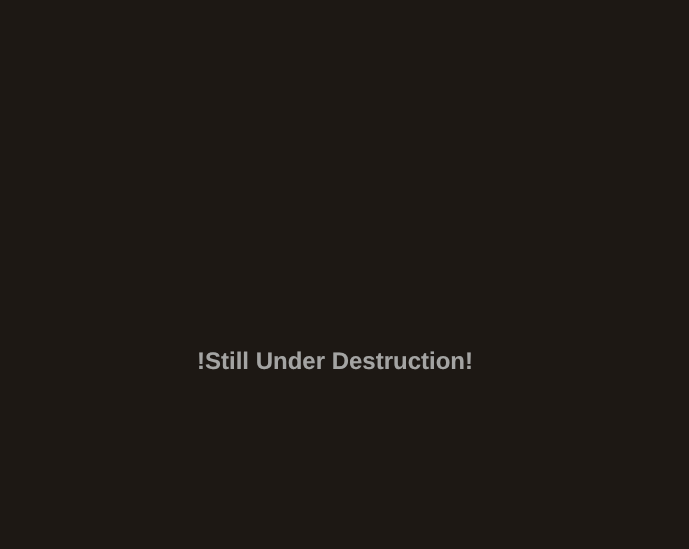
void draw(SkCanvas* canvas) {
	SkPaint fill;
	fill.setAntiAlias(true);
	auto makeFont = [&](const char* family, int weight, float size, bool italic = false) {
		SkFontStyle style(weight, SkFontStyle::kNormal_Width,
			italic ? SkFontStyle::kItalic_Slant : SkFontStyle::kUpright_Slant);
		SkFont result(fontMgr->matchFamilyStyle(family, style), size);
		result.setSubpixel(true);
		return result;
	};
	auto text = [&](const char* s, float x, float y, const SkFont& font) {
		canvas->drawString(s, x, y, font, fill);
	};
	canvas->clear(0xFF1D1814);
	auto font1 = makeFont("Liberation Sans", 700, 24);
	fill.setColor(0xFFA4A4A3);
	text("!Still Under Destruction!", 197, 369, font1);
}
